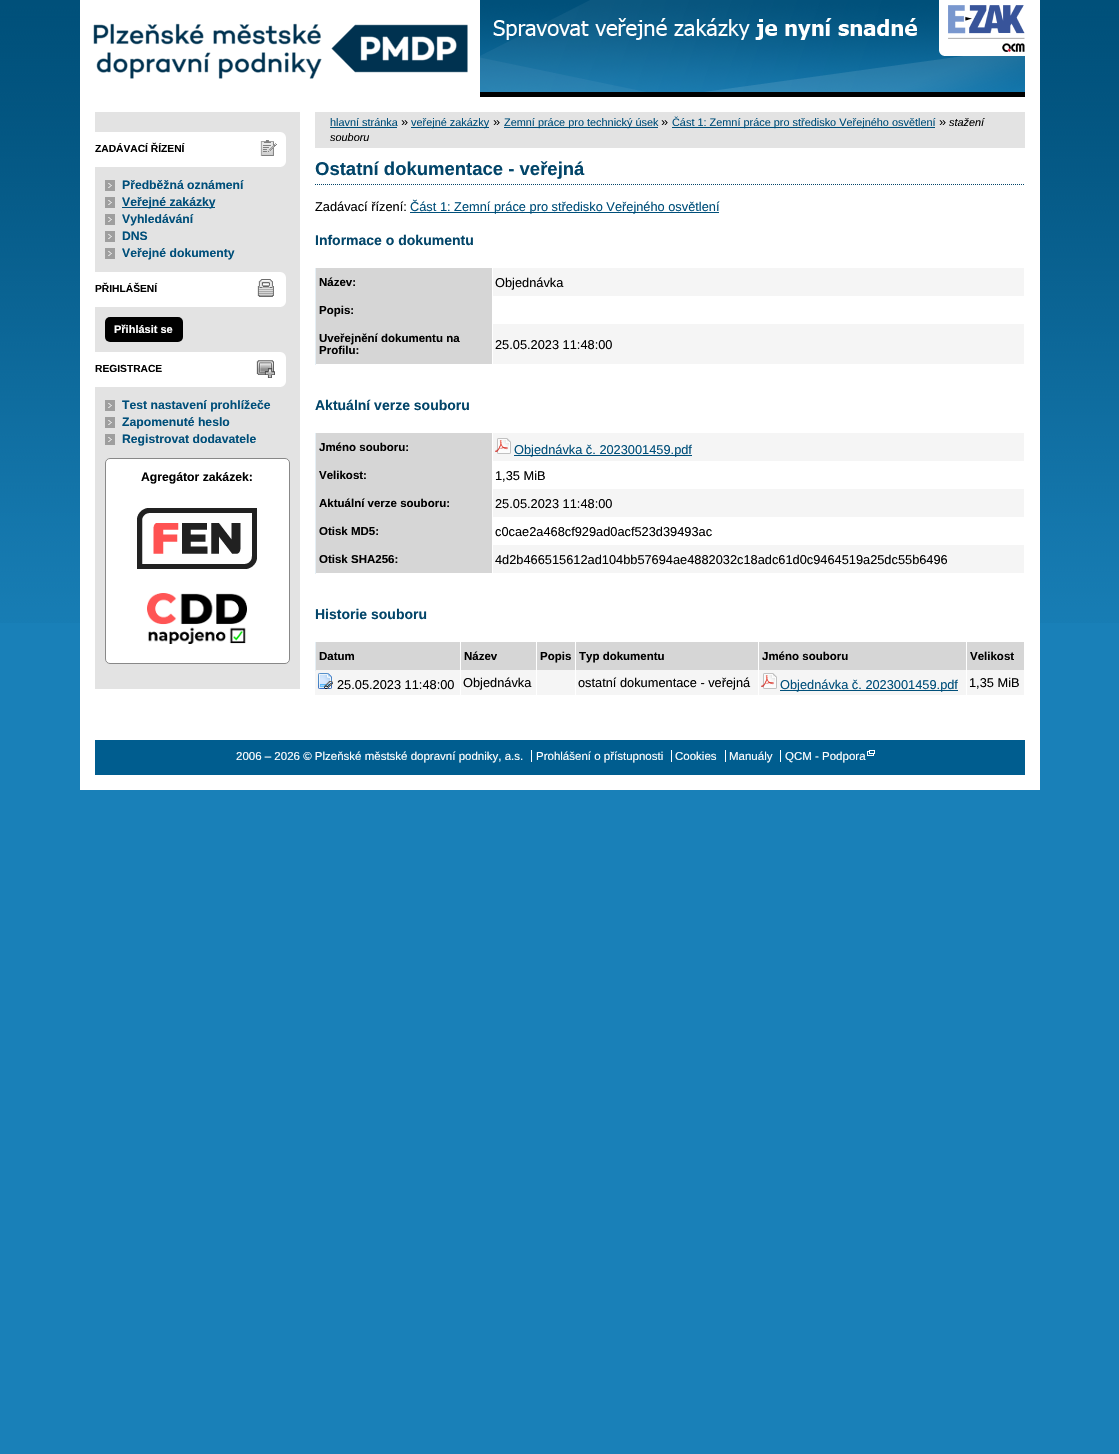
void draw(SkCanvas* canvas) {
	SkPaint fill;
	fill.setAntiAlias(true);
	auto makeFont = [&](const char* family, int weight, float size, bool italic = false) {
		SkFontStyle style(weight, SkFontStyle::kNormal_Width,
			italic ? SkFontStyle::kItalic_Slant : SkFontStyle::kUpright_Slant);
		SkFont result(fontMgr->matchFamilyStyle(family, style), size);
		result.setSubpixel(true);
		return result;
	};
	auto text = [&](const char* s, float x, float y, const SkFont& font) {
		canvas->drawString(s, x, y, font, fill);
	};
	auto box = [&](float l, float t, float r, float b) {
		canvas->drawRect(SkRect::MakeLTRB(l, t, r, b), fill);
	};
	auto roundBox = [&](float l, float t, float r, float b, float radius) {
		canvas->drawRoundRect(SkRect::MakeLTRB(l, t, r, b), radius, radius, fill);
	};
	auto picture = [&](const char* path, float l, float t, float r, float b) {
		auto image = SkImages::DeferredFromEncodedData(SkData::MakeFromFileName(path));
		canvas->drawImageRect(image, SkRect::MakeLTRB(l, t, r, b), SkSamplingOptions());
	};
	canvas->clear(0xFF1980B8);
	picture("image0.png", 0, 0, 1119, 623);
	picture("image1.png", 480, 0, 1040, 97);
	picture("image2.png", 80, 0, 480, 97);
	picture("image3.png", 939, 0, 1025, 56);
	fill.setColor(0xFFFFFFFF);
	box(80, 97, 1040, 790);
	fill.setColor(0xFFE3E3E3);
	box(95, 112, 300, 689);
	picture("image4.png", 95, 132, 286, 167);
	picture("image5.png", 105, 180, 115, 191);
	picture("image5.png", 105, 197, 115, 208);
	fill.setColor(0xFF004F7A);
	box(122, 207, 215, 208);
	picture("image5.png", 105, 214, 115, 225);
	picture("image5.png", 105, 231, 115, 242);
	picture("image5.png", 105, 248, 115, 259);
	picture("image6.png", 95, 272, 286, 307);
	fill.setColor(0xFF000000);
	roundBox(105, 317, 183, 342, 5);
	picture("image7.png", 95, 352, 286, 387);
	picture("image5.png", 105, 400, 115, 411);
	picture("image5.png", 105, 417, 115, 428);
	picture("image5.png", 105, 434, 115, 445);
	fill.setColor(0xFFFFFFFF);
	canvas->drawRoundRect(SkRect::MakeLTRB(105.5f, 458.5f, 289.5f, 663.5f), 4.5f, 4.5f, fill);
	fill.setStyle(SkPaint::kStroke_Style);
	fill.setStrokeWidth(1);
	fill.setColor(0xFF888888);
	canvas->drawRoundRect(SkRect::MakeLTRB(105.5f, 458.5f, 289.5f, 663.5f), 4.5f, 4.5f, fill);
	picture("image8.png", 137, 508, 257, 569);
	picture("image9.png", 147, 593, 247, 644);
	fill.setStyle(SkPaint::kFill_Style);
	fill.setColor(0xFFE3E3E3);
	box(315, 112, 1025, 148);
	fill.setColor(0xFF004F7A);
	box(330, 127, 397, 128);
	box(411, 127, 489, 128);
	box(504, 127, 658, 128);
	box(672, 127, 935, 128);
	fill.setStyle(SkPaint::kStroke_Style);
	fill.setColor(0xFF024569);
	fill.setPathEffect(SkDashPathEffect::Make({{1, 1}}, 0));
	canvas->drawPath(SkPathBuilder().moveTo(315, 184.5f).lineTo(1025, 184.5f).detach(), fill);
	fill.setPathEffect(nullptr);
	fill.setStyle(SkPaint::kFill_Style);
	fill.setColor(0xFF004F7A);
	box(410, 212, 719, 213);
	fill.setColor(0xFFF5F5F5);
	box(493, 268, 1024, 296);
	fill.setColor(0xFFD6D6D6);
	box(316, 268, 492, 364);
	fill.setColor(0xFFF5F5F5);
	box(493, 324, 1024, 364);
	fill.setColor(0xFFE5EFF5);
	box(315, 268, 316, 365);
	fill.setColor(0xFFF5F5F5);
	box(493, 433, 1024, 461);
	fill.setColor(0xFFD6D6D6);
	box(316, 433, 492, 573);
	picture("image10.png", 495, 438, 511, 454);
	fill.setColor(0xFF004F7A);
	box(514, 455, 692, 456);
	fill.setColor(0xFFF5F5F5);
	box(493, 489, 1024, 517);
	box(493, 545, 1024, 573);
	fill.setColor(0xFFE5EFF5);
	box(315, 433, 316, 574);
	fill.setColor(0xFFD6D6D6);
	box(316, 642, 460, 670);
	fill.setColor(0xFFF5F5F5);
	box(315, 670, 1024, 695);
	fill.setColor(0xFFE5EFF5);
	box(315, 642, 316, 671);
	fill.setColor(0xFFD6D6D6);
	box(461, 642, 536, 670);
	box(537, 642, 575, 670);
	box(576, 642, 758, 670);
	box(759, 642, 966, 670);
	box(967, 642, 1024, 670);
	fill.setColor(0xFFFFFFFF);
	box(460, 670, 461, 696);
	picture("image11.png", 318, 673, 333, 689);
	box(536, 670, 537, 696);
	box(575, 670, 576, 696);
	box(758, 670, 759, 696);
	box(966, 670, 967, 696);
	picture("image10.png", 761, 673, 777, 689);
	fill.setColor(0xFF004F7A);
	box(780, 690, 958, 691);
	fill.setColor(0xFF005D8F);
	box(95, 740, 1025, 775);
	fill.setColor(0xFFFFFFFF);
	box(531, 750, 532, 762);
	box(671, 750, 672, 762);
	box(725, 750, 726, 762);
	box(780, 750, 781, 762);
	picture("image12.png", 867, 750, 875, 756);
	auto font1 = makeFont("Liberation Sans", 700, 10.25f);
	fill.setColor(0xFF000000);
	text("ZADÁVACÍ ŘÍZENÍ", 95, 152, font1);
	auto font2 = makeFont("Liberation Sans", 700, 12.2f);
	fill.setColor(0xFF004F7A);
	text("Předběžná oznámení", 122, 189, font2);
	text("Veřejné zakázky", 122, 206, font2);
	text("Vyhledávání", 122, 223, font2);
	text("DNS", 122, 240, font2);
	text("Veřejné dokumenty", 122, 257, font2);
	fill.setColor(0xFF000000);
	text("PŘIHLÁŠENÍ", 95, 292, font1);
	auto font3 = makeFont("Liberation Sans", 700, 11);
	fill.setColor(0xFFFFFFFF);
	text("Přihlásit se", 114, 333, font3);
	fill.setColor(0xFF000000);
	text("REGISTRACE", 95, 372, font1);
	fill.setColor(0xFF004F7A);
	text("Test nastavení prohlížeče", 122, 409, font2);
	text("Zapomenuté heslo", 122, 426, font2);
	text("Registrovat dodavatele", 122, 443, font2);
	fill.setColor(0xFF000000);
	text("Agregátor zakázek:", 141, 481, font2);
	auto font4 = makeFont("Liberation Sans", 400, 10.9f);
	fill.setColor(0xFF004F7A);
	text("hlavní stránka", 330, 126, font4);
	auto font5 = makeFont("Liberation Sans", 400, 12.8f);
	fill.setColor(0xFF000000);
	text("»", 401, 126, font5);
	fill.setColor(0xFF004F7A);
	text("veřejné zakázky", 411, 126, font4);
	fill.setColor(0xFF000000);
	text("»", 493, 126, font5);
	fill.setColor(0xFF004F7A);
	text("Zemní práce pro technický úsek", 504, 126, font4);
	fill.setColor(0xFF000000);
	text("»", 661, 126, font5);
	fill.setColor(0xFF004F7A);
	text("Část 1: Zemní práce pro středisko Veřejného osvětlení", 672, 126, font4);
	fill.setColor(0xFF000000);
	text("»", 939, 126, font5);
	auto font6 = makeFont("Liberation Sans", 400, 10.9f, true);
	text("stažení", 949, 126, font6);
	text("souboru", 330, 141, font6);
	auto font7 = makeFont("Liberation Sans", 700, 18.5f);
	fill.setColor(0xFF024569);
	text("Ostatní dokumentace - veřejná", 315, 175, font7);
	fill.setColor(0xFF000000);
	text("Zadávací řízení:", 315, 211, font5);
	fill.setColor(0xFF004F7A);
	text("Část 1: Zemní práce pro středisko Veřejného osvětlení", 410, 211, font5);
	auto font8 = makeFont("Liberation Sans", 700, 14);
	fill.setColor(0xFF024569);
	text("Informace o dokumentu", 315, 245, font8);
	auto font9 = makeFont("Liberation Sans", 700, 11.5f);
	fill.setColor(0xFF000000);
	text("Název:", 319, 286, font9);
	text("Objednávka", 495, 287, font5);
	text("Popis:", 319, 314, font9);
	text("Uveřejnění dokumentu na", 319, 342, font9);
	text("Profilu:", 319, 354, font9);
	text("25.05.2023 11:48:00", 495, 349, font5);
	fill.setColor(0xFF024569);
	text("Aktuální verze souboru", 315, 410, font8);
	fill.setColor(0xFF000000);
	text("Jméno souboru:", 319, 451, font9);
	fill.setColor(0xFF004F7A);
	text("Objednávka č. 2023001459.pdf", 514, 454, font5);
	fill.setColor(0xFF000000);
	text("Velikost:", 319, 479, font9);
	text("1,35 MiB", 495, 480, font5);
	text("Aktuální verze souboru:", 319, 507, font9);
	text("25.05.2023 11:48:00", 495, 508, font5);
	text("Otisk MD5:", 319, 535, font9);
	text("c0cae2a468cf929ad0acf523d39493ac", 495, 536, font5);
	text("Otisk SHA256:", 319, 563, font9);
	text("4d2b466515612ad104bb57694ae4882032c18adc61d0c9464519a25dc55b6496", 495, 564, font5);
	fill.setColor(0xFF024569);
	text("Historie souboru", 315, 619, font8);
	fill.setColor(0xFF000000);
	text("Datum", 319, 660, font9);
	text("Název", 464, 660, font9);
	text("Popis", 540, 660, font9);
	text("Typ dokumentu", 579, 660, font9);
	text("Jméno souboru", 762, 660, font9);
	text("Velikost", 970, 660, font9);
	text("25.05.2023 11:48:00", 337, 689, font5);
	text("Objednávka", 463, 687, font5);
	text("ostatní dokumentace - veřejná", 578, 687, font5);
	fill.setColor(0xFF004F7A);
	text("Objednávka č. 2023001459.pdf", 780, 689, font5);
	fill.setColor(0xFF000000);
	text("1,35 MiB", 969, 687, font5);
	auto font10 = makeFont("Liberation Sans", 400, 11.5f);
	fill.setColor(0xFFFFFFFF);
	text("2006 – 2026 © Plzeňské městské dopravní podniky, a.s.", 236, 760, font10);
	text("Prohlášení o přístupnosti", 536, 760, font10);
	text("Cookies", 675, 760, font10);
	text("Manuály", 729, 760, font10);
	text("QCM - Podpora", 785, 760, font10);
}
